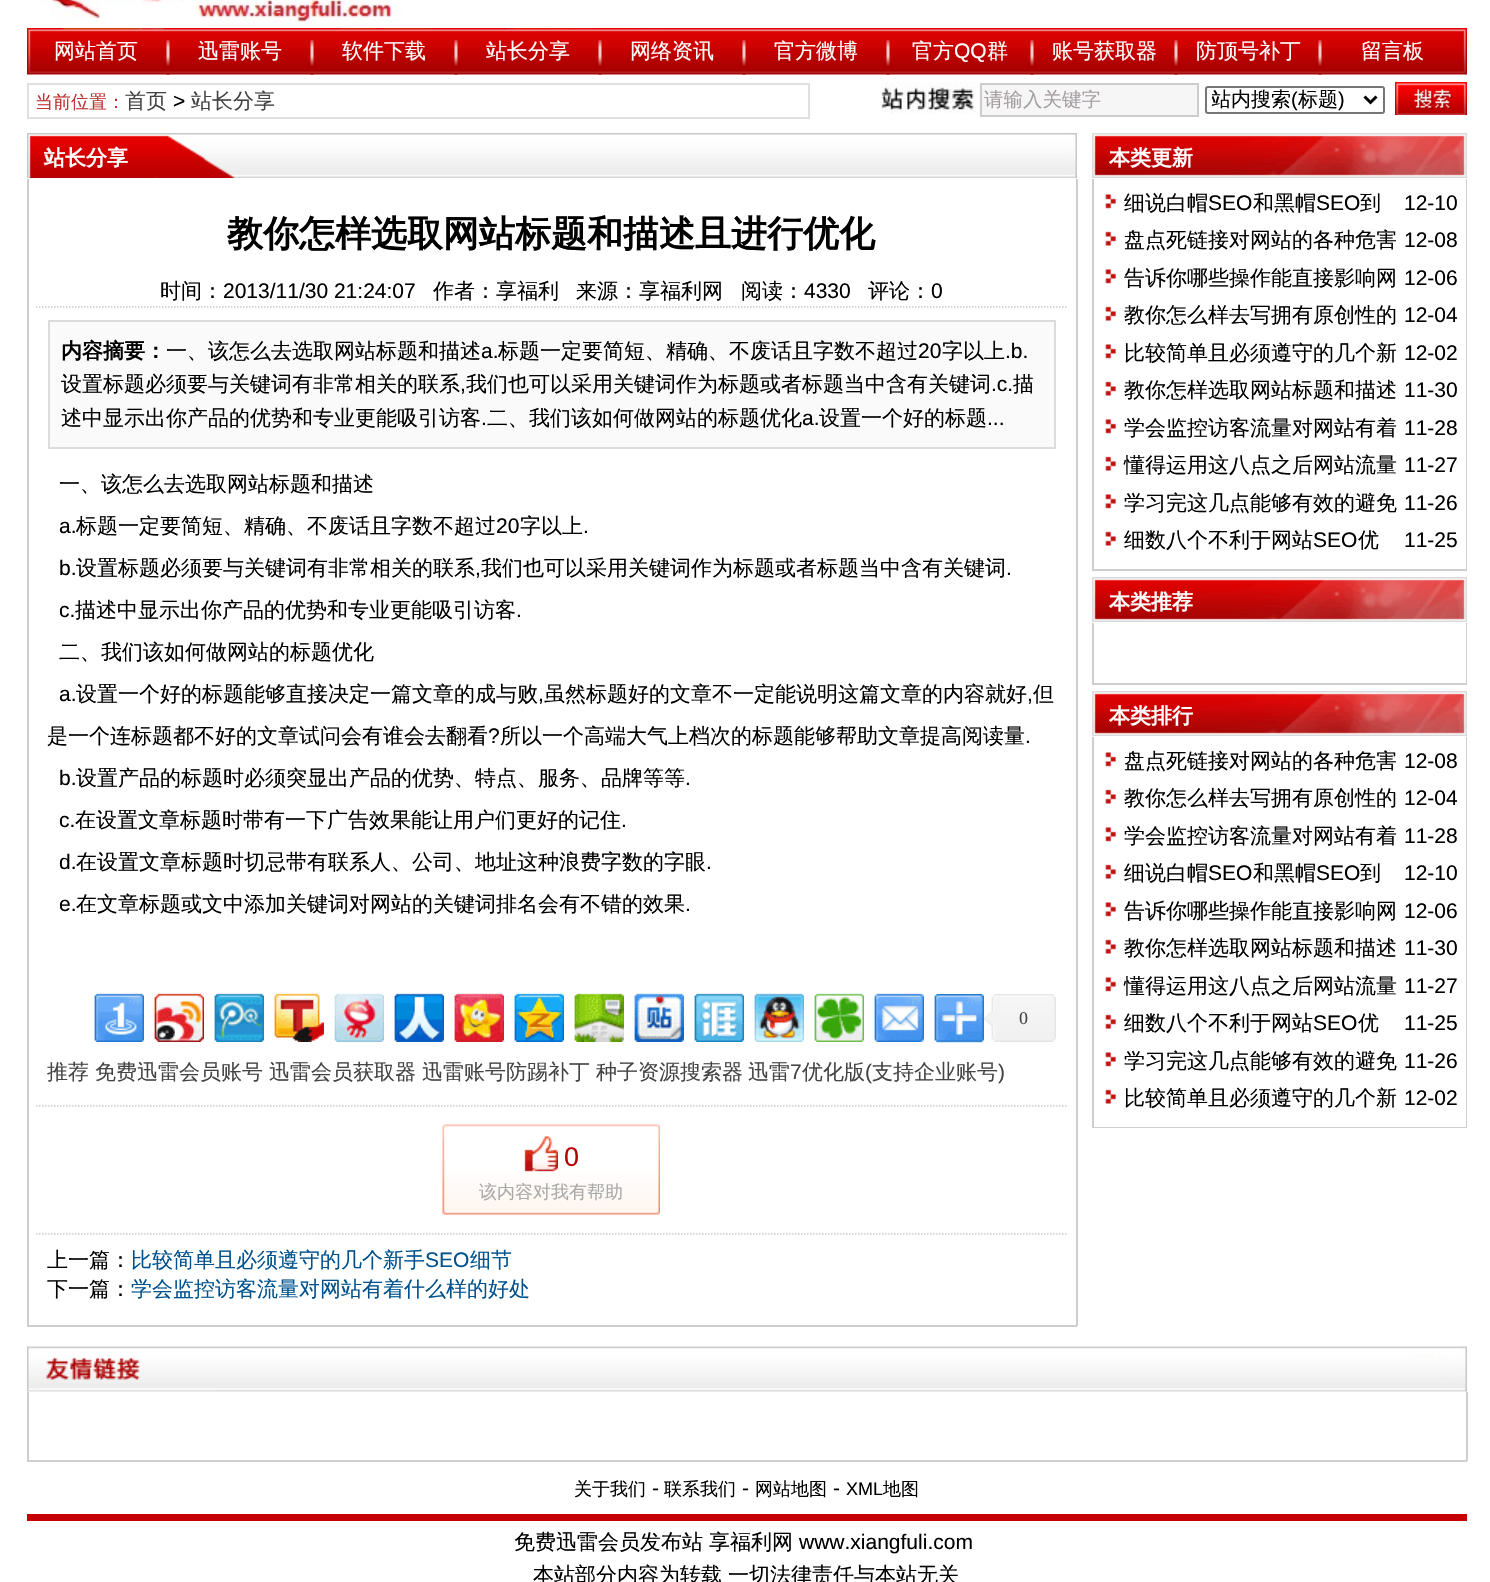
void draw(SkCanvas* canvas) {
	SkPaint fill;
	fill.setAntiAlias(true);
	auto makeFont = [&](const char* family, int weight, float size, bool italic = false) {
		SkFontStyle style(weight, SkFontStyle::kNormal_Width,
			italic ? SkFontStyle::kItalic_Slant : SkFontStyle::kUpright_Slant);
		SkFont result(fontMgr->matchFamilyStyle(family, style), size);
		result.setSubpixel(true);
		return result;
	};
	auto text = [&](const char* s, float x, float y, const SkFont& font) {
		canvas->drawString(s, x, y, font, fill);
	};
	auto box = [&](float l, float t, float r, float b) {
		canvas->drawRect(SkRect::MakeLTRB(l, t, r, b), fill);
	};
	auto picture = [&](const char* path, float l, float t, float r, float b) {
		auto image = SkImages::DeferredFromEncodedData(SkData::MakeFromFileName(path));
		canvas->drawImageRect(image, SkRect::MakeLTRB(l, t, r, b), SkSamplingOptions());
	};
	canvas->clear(0xFFFFFFFF);
	picture("image0.png", 39, 0, 402, 22);
	picture("image1.png", 27, 28, 1467, 75);
	picture("image2.png", 166, 39, 170, 75);
	picture("image2.png", 310, 39, 314, 75);
	picture("image2.png", 454, 39, 458, 75);
	picture("image3.png", 598, 28, 602, 75);
	picture("image2.png", 742, 39, 746, 75);
	picture("image2.png", 886, 39, 890, 75);
	picture("image2.png", 1030, 39, 1034, 75);
	picture("image2.png", 1174, 39, 1178, 75);
	picture("image2.png", 1318, 39, 1322, 75);
	fill.setStyle(SkPaint::kStroke_Style);
	fill.setStrokeWidth(2);
	fill.setColor(0xFFE0E0E0);
	canvas->drawRect(SkRect::MakeLTRB(28, 84, 809, 118), fill);
	picture("image4.png", 881, 82, 976, 114);
	fill.setStyle(SkPaint::kFill_Style);
	fill.setColor(0xFFF6F6F6);
	canvas->drawRect(SkRect::MakeLTRB(981, 84, 1198, 116), fill);
	fill.setStyle(SkPaint::kStroke_Style);
	fill.setColor(0xFFCCCCCC);
	canvas->drawRect(SkRect::MakeLTRB(981, 84, 1198, 116), fill);
	fill.setColor(0xFF767676);
	canvas->drawRoundRect(SkRect::MakeLTRB(1206, 87, 1384, 113), 2, 2, fill);
	fill.setStrokeWidth(3);
	fill.setColor(0xFF000000);
	canvas->drawPath(SkPathBuilder().moveTo(1364.5f, 96.5f).lineTo(1370.5f, 102.5f).lineTo(1376.5f, 96.5f).detach(), fill);
	picture("image5.png", 1395, 82, 1467, 115);
	picture("image6.png", 27, 133, 1077, 178);
	fill.setStyle(SkPaint::kFill_Style);
	fill.setColor(0xFFCECECE);
	box(1076, 179, 1078, 1326);
	box(27, 1325, 1077, 1327);
	box(27, 179, 29, 1326);
	fill.setStyle(SkPaint::kStroke_Style);
	fill.setStrokeWidth(1.5f);
	fill.setColor(0xFFCCCCCC);
	fill.setPathEffect(SkDashPathEffect::Make({{1.5f, 1.5f}}, 0));
	canvas->drawPath(SkPathBuilder().moveTo(36, 307).lineTo(1068, 307).detach(), fill);
	fill.setPathEffect(nullptr);
	fill.setPathEffect(SkDashPathEffect::Make({{1.5f, 1.5f}}, 0));
	canvas->drawPath(SkPathBuilder().moveTo(36, 1106).lineTo(1068, 1106).detach(), fill);
	fill.setPathEffect(nullptr);
	fill.setStyle(SkPaint::kFill_Style);
	fill.setColor(0xFFFAFAFA);
	canvas->drawRect(SkRect::MakeLTRB(49, 321, 1055, 448), fill);
	fill.setStyle(SkPaint::kStroke_Style);
	fill.setStrokeWidth(2);
	fill.setColor(0xFFDCDCDC);
	canvas->drawRect(SkRect::MakeLTRB(49, 321, 1055, 448), fill);
	picture("image7.png", 94, 993, 144, 1042);
	picture("image8.png", 154, 993, 204, 1042);
	picture("image9.png", 214, 993, 264, 1042);
	picture("image10.png", 274, 993, 324, 1042);
	picture("image11.png", 334, 993, 384, 1042);
	picture("image12.png", 394, 993, 444, 1042);
	picture("image13.png", 454, 993, 504, 1042);
	picture("image14.png", 514, 993, 564, 1042);
	picture("image15.png", 574, 993, 624, 1042);
	picture("image16.png", 634, 993, 684, 1042);
	picture("image17.png", 694, 993, 744, 1042);
	picture("image18.png", 754, 993, 804, 1042);
	picture("image19.png", 814, 993, 864, 1042);
	picture("image20.png", 874, 993, 924, 1042);
	picture("image21.png", 934, 994, 984, 1043);
	picture("image22.png", 984, 994, 1056, 1042);
	fill.setStrokeWidth(1.5f);
	fill.setColor(0xFFCCCCCC);
	fill.setPathEffect(SkDashPathEffect::Make({{1.5f, 1.5f}}, 0));
	canvas->drawPath(SkPathBuilder().moveTo(36, 1234).lineTo(1068, 1234).detach(), fill);
	fill.setPathEffect(nullptr);
	picture("image23.png", 442, 1124, 660, 1215);
	picture("image24.png", 524, 1136, 558, 1172);
	picture("image25.png", 1092, 133, 1467, 178);
	fill.setStyle(SkPaint::kFill_Style);
	fill.setColor(0xFFCECECE);
	box(1466, 179, 1467, 570);
	box(1092, 569, 1467, 571);
	box(1092, 179, 1094, 570);
	picture("image26.png", 1105, 194, 1116, 209);
	picture("image27.png", 1105, 231, 1116, 246);
	picture("image26.png", 1105, 269, 1116, 284);
	picture("image27.png", 1105, 306, 1116, 321);
	picture("image26.png", 1105, 344, 1116, 359);
	picture("image27.png", 1105, 381, 1116, 396);
	picture("image26.png", 1105, 419, 1116, 434);
	picture("image27.png", 1105, 456, 1116, 471);
	picture("image26.png", 1105, 494, 1116, 509);
	picture("image27.png", 1105, 531, 1116, 546);
	picture("image25.png", 1092, 577, 1467, 622);
	box(1466, 623, 1467, 684);
	box(1092, 683, 1467, 685);
	box(1092, 623, 1094, 684);
	picture("image25.png", 1092, 691, 1467, 736);
	box(1466, 737, 1467, 1128);
	box(1092, 1127, 1467, 1128);
	box(1092, 737, 1094, 1128);
	picture("image26.png", 1105, 752, 1116, 767);
	picture("image27.png", 1105, 789, 1116, 804);
	picture("image26.png", 1105, 827, 1116, 842);
	picture("image27.png", 1105, 864, 1116, 879);
	picture("image26.png", 1105, 902, 1116, 917);
	picture("image27.png", 1105, 939, 1116, 954);
	picture("image26.png", 1105, 977, 1116, 992);
	picture("image27.png", 1105, 1014, 1116, 1029);
	picture("image26.png", 1105, 1052, 1116, 1067);
	picture("image27.png", 1105, 1089, 1116, 1104);
	picture("image28.png", 27, 1346, 1467, 1392);
	box(1466, 1392, 1468, 1461);
	box(27, 1460, 1467, 1462);
	box(27, 1392, 29, 1461);
	fill.setColor(0xFFC60000);
	box(27, 1514, 1467, 1521);
	auto font1 = makeFont("WenQuanYi Zen Hei", 500, 21);
	fill.setColor(0xFFFFFFFF);
	text("网站首页", 54, 58, font1);
	text("迅雷账号", 198, 58, font1);
	text("软件下载", 342, 58, font1);
	text("站长分享", 486, 58, font1);
	text("网络资讯", 630, 58, font1);
	text("官方微博", 774, 58, font1);
	text("官方", 912, 58, font1);
	auto font2 = makeFont("Liberation Sans", 400, 21);
	text("QQ", 954, 58, font2);
	text("群", 987, 58, font1);
	text("账号获取器", 1052, 58, font1);
	text("防顶号补丁", 1196, 58, font1);
	text("留言板", 1361, 58, font1);
	auto font3 = makeFont("WenQuanYi Zen Hei", 500, 18);
	fill.setColor(0xFFBF3131);
	text("当前位置：", 35, 108, font3);
	fill.setColor(0xFF444444);
	text("首页", 125, 108, font1);
	fill.setColor(0xFF000000);
	text(">", 173, 108, font2);
	fill.setColor(0xFF444444);
	text("站长分享", 191, 108, font1);
	auto font4 = makeFont("WenQuanYi Zen Hei", 500, 19.5f);
	fill.setColor(0xFFA59EA3);
	text("请输入关键字", 984, 106, font4);
	canvas->save();
	canvas->clipRect(SkRect::MakeLTRB(1212, 87, 1359, 113));
	auto font5 = makeFont("WenQuanYi Zen Hei", 500, 20);
	fill.setColor(0xFF000000);
	text("站内搜索", 1211, 106, font5);
	canvas->restore();
	auto font6 = makeFont("Liberation Sans", 400, 20);
	text("(", 1291, 106, font6);
	text("标题", 1298, 106, font5);
	text(")", 1338, 106, font6);
	auto font7 = makeFont("WenQuanYi Zen Hei", 700, 21);
	fill.setColor(0xFFFFFFFF);
	text("站长分享", 44, 165, font7);
	auto font8 = makeFont("WenQuanYi Zen Hei", 700, 36);
	fill.setColor(0xFF000000);
	text("教你怎样选取网站标题和描述且进行优化", 227, 246, font8);
	text("时间：", 160, 298, font1);
	text("2013/11/30 21:24:07", 223, 298, font2);
	text("作者：享福利", 433, 298, font1);
	text("来源：享福利网", 576, 298, font1);
	text("阅读：", 741, 298, font1);
	text("4330", 804, 298, font2);
	text("评论：", 868, 298, font1);
	text("0", 931, 298, font2);
	text("内容摘要：", 61, 358, font7);
	text("一、该怎么去选取网站标题和描述", 166, 358, font1);
	text("a.", 481, 358, font2);
	text("标题一定要简短、精确、不废话且字数不超过", 498, 358, font1);
	text("20", 918, 358, font2);
	text("字以上", 942, 358, font1);
	text(".b.", 1005, 358, font2);
	text("设置标题必须要与关键词有非常相关的联系", 61, 391, font1);
	text(",", 460, 391, font2);
	text("我们也可以采用关键词作为标题或者标题当中含有关键词", 466, 391, font1);
	text(".c.", 991, 391, font2);
	text("描", 1013, 391, font1);
	text("述中显示出你产品的优势和专业更能吸引访客", 61, 425, font1);
	text(".", 481, 425, font2);
	text("二、我们该如何做网站的标题优化", 487, 425, font1);
	text("a.", 802, 425, font2);
	text("设置一个好的标题", 819, 425, font1);
	text("...", 987, 425, font2);
	text("一、该怎么去选取网站标题和描述", 59, 491, font1);
	text("a.", 59, 533, font2);
	text("标题一定要简短、精确、不废话且字数不超过", 76, 533, font1);
	text("20", 496, 533, font2);
	text("字以上", 520, 533, font1);
	text(".", 583, 533, font2);
	text("b.", 59, 575, font2);
	text("设置标题必须要与关键词有非常相关的联系", 76, 575, font1);
	text(",", 475, 575, font2);
	text("我们也可以采用关键词作为标题或者标题当中含有关键词", 481, 575, font1);
	text(".", 1006, 575, font2);
	text("c.", 59, 617, font2);
	text("描述中显示出你产品的优势和专业更能吸引访客", 75, 617, font1);
	text(".", 516, 617, font2);
	text("二、我们该如何做网站的标题优化", 59, 659, font1);
	text("a.", 59, 701, font2);
	text("设置一个好的标题能够直接决定一篇文章的成与败", 76, 701, font1);
	text(",", 538, 701, font2);
	text("虽然标题好的文章不一定能说明这篇文章的内容就好", 544, 701, font1);
	text(",", 1027, 701, font2);
	text("但", 1033, 701, font1);
	text("是一个连标题都不好的文章试问会有谁会去翻看", 47, 743, font1);
	text("?", 488, 743, font2);
	text("所以一个高端大气上档次的标题能够帮助文章提高阅读量", 500, 743, font1);
	text(".", 1025, 743, font2);
	text("b.", 59, 785, font2);
	text("设置产品的标题时必须突显出产品的优势、特点、服务、品牌等等", 76, 785, font1);
	text(".", 685, 785, font2);
	text("c.", 59, 827, font2);
	text("在设置文章标题时带有一下广告效果能让用户们更好的记住", 75, 827, font1);
	text(".", 621, 827, font2);
	text("d.", 59, 869, font2);
	text("在设置文章标题时切忌带有联系人、公司、地址这种浪费字数的字眼", 76, 869, font1);
	text(".", 706, 869, font2);
	text("e.", 59, 911, font2);
	text("在文章标题或文中添加关键词对网站的关键词排名会有不错的效果", 76, 911, font1);
	text(".", 685, 911, font2);
	auto font9 = makeFont("Liberation Serif", 400, 18);
	fill.setColor(0xFF444444);
	text("0", 1019, 1024, font9);
	text("推荐", 47, 1079, font1);
	text("免费迅雷会员账号", 95, 1079, font1);
	text("迅雷会员获取器", 269, 1079, font1);
	text("迅雷账号防踢补丁", 422, 1079, font1);
	text("种子资源搜索器", 596, 1079, font1);
	text("迅雷", 748, 1079, font1);
	text("7", 790, 1079, font2);
	text("优化版", 802, 1079, font1);
	text("(", 865, 1079, font2);
	text("支持企业账号", 872, 1079, font1);
	text(")", 998, 1079, font2);
	auto font10 = makeFont("Liberation Sans", 400, 27);
	fill.setColor(0xFFB50005);
	text("0", 564, 1166, font10);
	fill.setColor(0xFFA9A9A9);
	text("该内容对我有帮助", 479, 1198, font3);
	fill.setColor(0xFF000000);
	text("上一篇：", 47, 1267, font1);
	fill.setColor(0xFF00528E);
	text("比较简单且必须遵守的几个新手", 131, 1267, font1);
	text("SEO", 425, 1267, font2);
	text("细节", 470, 1267, font1);
	fill.setColor(0xFF000000);
	text("下一篇：", 47, 1296, font1);
	fill.setColor(0xFF00528E);
	text("学会监控访客流量对网站有着什么样的好处", 131, 1296, font1);
	fill.setColor(0xFFFFFFFF);
	text("本类更新", 1109, 165, font7);
	fill.setColor(0xFF000000);
	text("细说白帽", 1124, 210, font1);
	text("SEO", 1208, 210, font2);
	text("和黑帽", 1253, 210, font1);
	text("SEO", 1316, 210, font2);
	text("到", 1360, 210, font1);
	text("12-10", 1404, 210, font2);
	text("盘点死链接对网站的各种危害", 1124, 247, font1);
	text("12-08", 1404, 247, font2);
	text("告诉你哪些操作能直接影响网", 1124, 285, font1);
	text("12-06", 1404, 285, font2);
	text("教你怎么样去写拥有原创性的", 1124, 322, font1);
	text("12-04", 1404, 322, font2);
	text("比较简单且必须遵守的几个新", 1124, 360, font1);
	text("12-02", 1404, 360, font2);
	text("教你怎样选取网站标题和描述", 1124, 397, font1);
	text("11-30", 1404, 397, font2);
	text("学会监控访客流量对网站有着", 1124, 435, font1);
	text("11-28", 1404, 435, font2);
	text("懂得运用这八点之后网站流量", 1124, 472, font1);
	text("11-27", 1404, 472, font2);
	text("学习完这几点能够有效的避免", 1124, 510, font1);
	text("11-26", 1404, 510, font2);
	text("细数八个不利于网站", 1124, 547, font1);
	text("SEO", 1313, 547, font2);
	text("优", 1358, 547, font1);
	text("11-25", 1404, 547, font2);
	fill.setColor(0xFFFFFFFF);
	text("本类推荐", 1109, 609, font7);
	text("本类排行", 1109, 723, font7);
	fill.setColor(0xFF000000);
	text("盘点死链接对网站的各种危害", 1124, 768, font1);
	text("12-08", 1404, 768, font2);
	text("教你怎么样去写拥有原创性的", 1124, 805, font1);
	text("12-04", 1404, 805, font2);
	text("学会监控访客流量对网站有着", 1124, 843, font1);
	text("11-28", 1404, 843, font2);
	text("细说白帽", 1124, 880, font1);
	text("SEO", 1208, 880, font2);
	text("和黑帽", 1253, 880, font1);
	text("SEO", 1316, 880, font2);
	text("到", 1360, 880, font1);
	text("12-10", 1404, 880, font2);
	text("告诉你哪些操作能直接影响网", 1124, 918, font1);
	text("12-06", 1404, 918, font2);
	text("教你怎样选取网站标题和描述", 1124, 955, font1);
	text("11-30", 1404, 955, font2);
	text("懂得运用这八点之后网站流量", 1124, 993, font1);
	text("11-27", 1404, 993, font2);
	text("细数八个不利于网站", 1124, 1030, font1);
	text("SEO", 1313, 1030, font2);
	text("优", 1358, 1030, font1);
	text("11-25", 1404, 1030, font2);
	text("学习完这几点能够有效的避免", 1124, 1068, font1);
	text("11-26", 1404, 1068, font2);
	text("比较简单且必须遵守的几个新", 1124, 1105, font1);
	text("12-02", 1404, 1105, font2);
	text("关于我们", 574, 1495, font3);
	text("-", 652, 1495, font2);
	text("联系我们", 664, 1495, font3);
	text("-", 742, 1495, font2);
	text("网站地图", 755, 1495, font3);
	text("-", 833, 1495, font2);
	auto font11 = makeFont("Liberation Sans", 400, 18);
	text("XML", 846, 1495, font11);
	text("地图", 883, 1495, font3);
	text("免费迅雷会员发布站", 514, 1549, font1);
	text("享福利网", 709, 1549, font1);
	text("www.xiangfuli.com", 799, 1549, font2);
	text("本站部分内容为转载", 533, 1582, font1);
	text("一切法律责任与本站无关", 728, 1582, font1);
}
